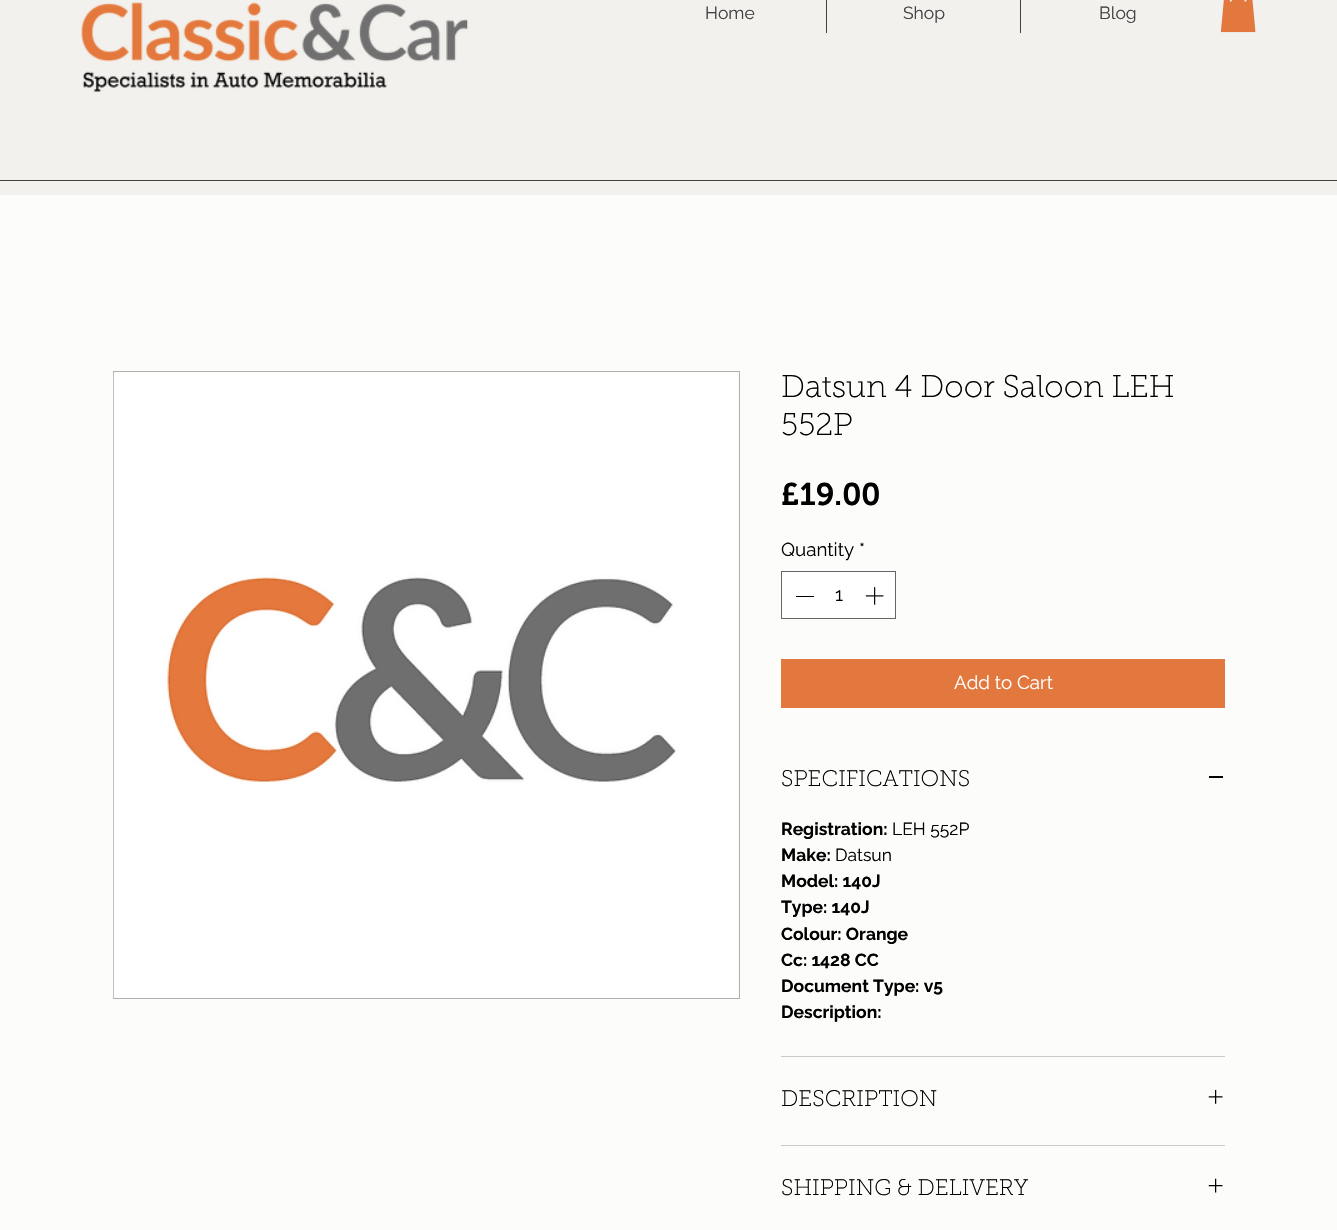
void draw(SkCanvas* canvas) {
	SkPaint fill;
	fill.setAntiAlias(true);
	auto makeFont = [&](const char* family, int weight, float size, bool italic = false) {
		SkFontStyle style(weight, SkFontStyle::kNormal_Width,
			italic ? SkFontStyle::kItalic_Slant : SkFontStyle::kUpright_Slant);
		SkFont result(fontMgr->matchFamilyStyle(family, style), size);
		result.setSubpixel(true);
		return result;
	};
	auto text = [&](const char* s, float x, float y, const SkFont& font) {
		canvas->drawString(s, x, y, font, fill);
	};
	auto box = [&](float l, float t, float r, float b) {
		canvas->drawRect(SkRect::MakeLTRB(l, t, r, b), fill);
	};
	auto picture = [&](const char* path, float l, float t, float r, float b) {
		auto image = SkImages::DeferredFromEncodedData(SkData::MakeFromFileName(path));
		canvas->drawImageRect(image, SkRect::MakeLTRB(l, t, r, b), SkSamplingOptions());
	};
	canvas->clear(0xFFFCFCFA);
	fill.setColor(0xFFF2F1ED);
	box(0, 0, 1337, 195);
	picture("image0.png", 81, 2, 468, 92);
	fill.setColor(0xFF404040);
	box(826, 0, 827, 33);
	box(1020, 0, 1021, 33);
	picture("image1.png", 1220, 0, 1256, 33);
	box(0, 180, 1337, 181);
	fill.setStyle(SkPaint::kStroke_Style);
	fill.setStrokeWidth(1);
	fill.setColor(0xFFB0B0AF);
	canvas->drawRect(SkRect::MakeLTRB(113.5f, 371.5f, 739.5f, 998.5f), fill);
	picture("image2.png", 113, 373, 738, 998);
	fill.setStyle(SkPaint::kFill_Style);
	fill.setColor(0xFFFFFFFF);
	canvas->drawRect(SkRect::MakeLTRB(781.5f, 571.5f, 895.5f, 618.5f), fill);
	fill.setStyle(SkPaint::kStroke_Style);
	fill.setColor(0xFF666666);
	canvas->drawRect(SkRect::MakeLTRB(781.5f, 571.5f, 895.5f, 618.5f), fill);
	fill.setStyle(SkPaint::kFill_Style);
	fill.setColor(0xFF000000);
	box(796, 596, 814, 597);
	picture("image3.png", 865, 587, 884, 605);
	fill.setColor(0xFFE3783E);
	box(781, 659, 1225, 708);
	fill.setColor(0xFFCACAC8);
	box(781, 1056, 1225, 1057);
	fill.setColor(0xFF000000);
	box(1209, 776, 1223, 778);
	fill.setColor(0xFFCACAC8);
	box(781, 1145, 1225, 1146);
	picture("image4.png", 1208, 1090, 1223, 1104);
	picture("image5.png", 1208, 1178, 1223, 1193);
	auto font1 = makeFont("Raleway", 400, 17.5f);
	fill.setColor(0xFF404040);
	text("Home", 705, 19, font1);
	text("Shop", 903, 19, font1);
	text("Blog", 1099, 19, font1);
	auto font2 = makeFont("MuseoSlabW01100", 100, 31.25f);
	fill.setColor(0xFF000000);
	text("Datsun 4 Door Saloon LEH", 781, 397, font2);
	text("552P", 781, 435, font2);
	auto font3 = makeFont("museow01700", 600, 31.25f);
	text("£19.00", 781, 505, font3);
	auto font4 = makeFont("Raleway", 400, 18.75f);
	text("Quantity *", 781, 556, font4);
	text("1", 835, 601, font4);
	fill.setColor(0xFFFFFFFF);
	text("Add to Cart", 954, 689, font4);
	auto font5 = makeFont("MuseoSlabW01100", 100, 22.5f);
	fill.setColor(0xFF000000);
	text("SPECIFICATIONS", 781, 786, font5);
	auto font6 = makeFont("Raleway", 700, 17.5f);
	text("Registration:", 781, 835, font6);
	text("LEH 552P", 892, 835, font1);
	text("Make:", 781, 861, font6);
	text("Datsun", 835, 861, font1);
	text("Model: 140J", 781, 887, font6);
	text("Type: 140J", 781, 913, font6);
	text("Colour: Orange", 781, 940, font6);
	text("Cc: 1428 CC", 781, 966, font6);
	text("Document Type: v5", 781, 992, font6);
	text("Description:", 781, 1018, font6);
	text("DESCRIPTION", 781, 1106, font5);
	text("SHIPPING & DELIVERY", 781, 1195, font5);
}
